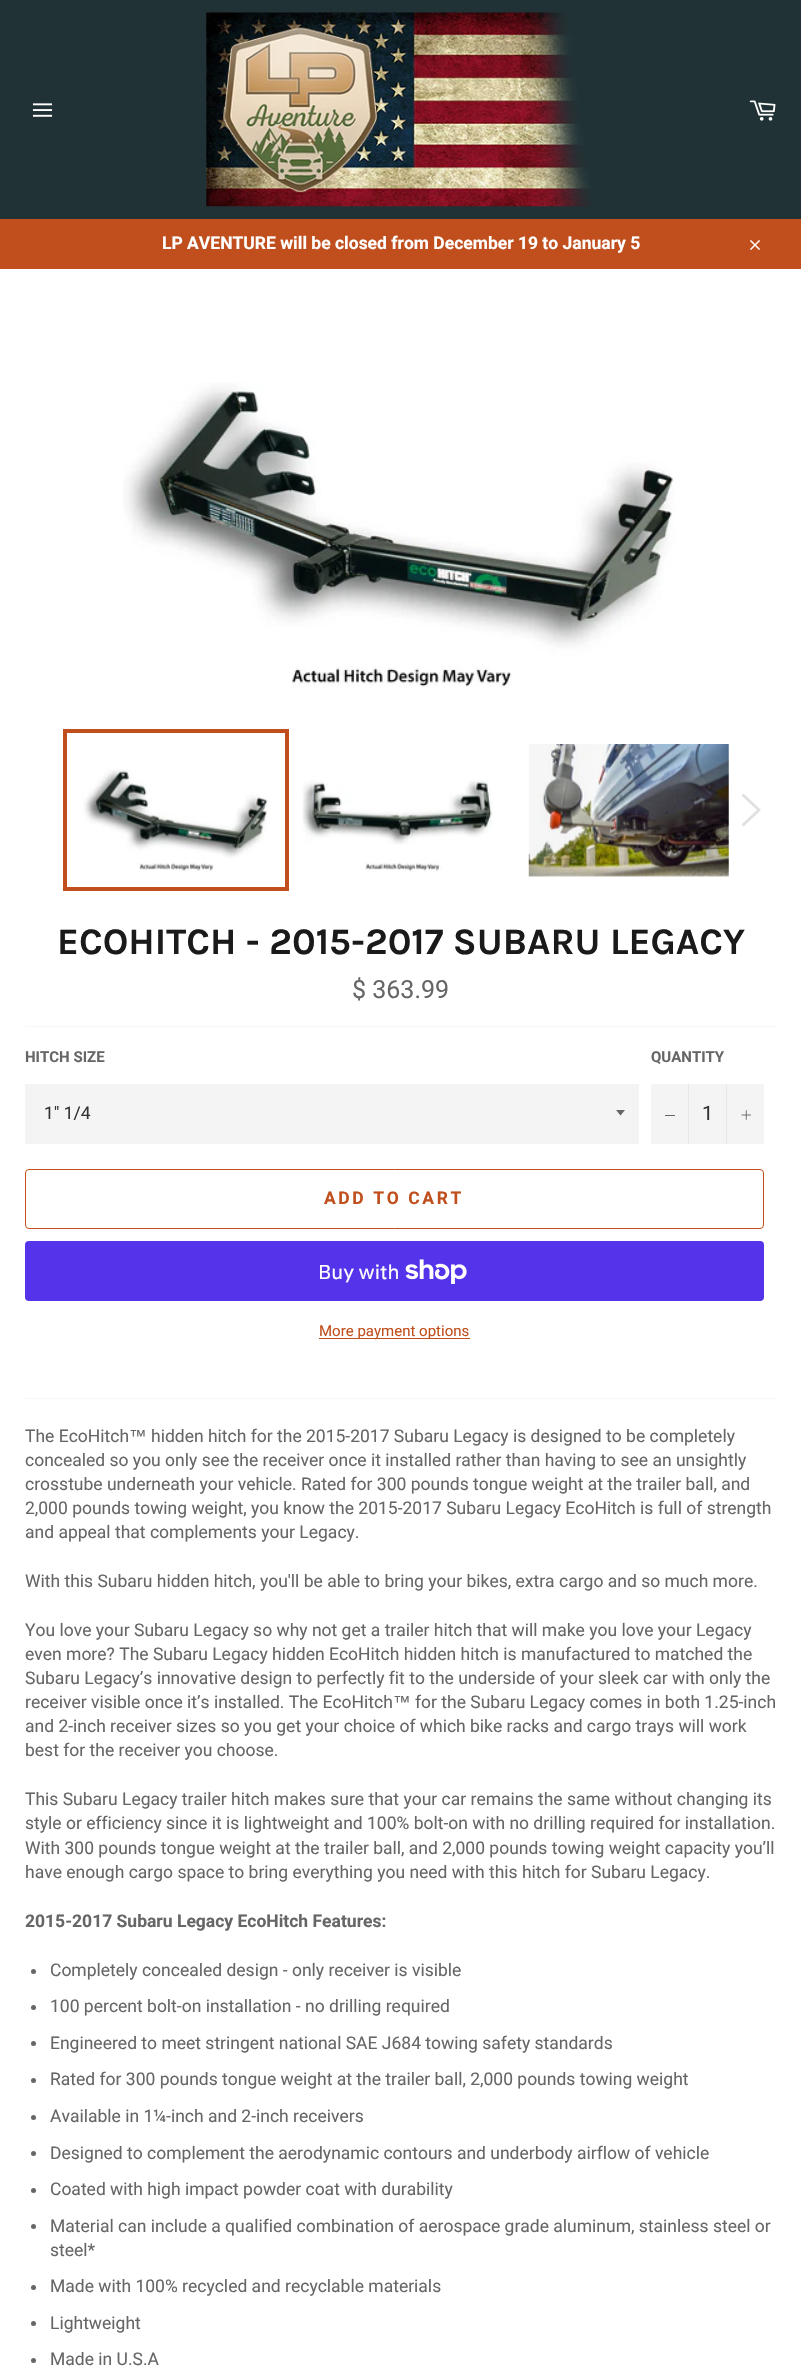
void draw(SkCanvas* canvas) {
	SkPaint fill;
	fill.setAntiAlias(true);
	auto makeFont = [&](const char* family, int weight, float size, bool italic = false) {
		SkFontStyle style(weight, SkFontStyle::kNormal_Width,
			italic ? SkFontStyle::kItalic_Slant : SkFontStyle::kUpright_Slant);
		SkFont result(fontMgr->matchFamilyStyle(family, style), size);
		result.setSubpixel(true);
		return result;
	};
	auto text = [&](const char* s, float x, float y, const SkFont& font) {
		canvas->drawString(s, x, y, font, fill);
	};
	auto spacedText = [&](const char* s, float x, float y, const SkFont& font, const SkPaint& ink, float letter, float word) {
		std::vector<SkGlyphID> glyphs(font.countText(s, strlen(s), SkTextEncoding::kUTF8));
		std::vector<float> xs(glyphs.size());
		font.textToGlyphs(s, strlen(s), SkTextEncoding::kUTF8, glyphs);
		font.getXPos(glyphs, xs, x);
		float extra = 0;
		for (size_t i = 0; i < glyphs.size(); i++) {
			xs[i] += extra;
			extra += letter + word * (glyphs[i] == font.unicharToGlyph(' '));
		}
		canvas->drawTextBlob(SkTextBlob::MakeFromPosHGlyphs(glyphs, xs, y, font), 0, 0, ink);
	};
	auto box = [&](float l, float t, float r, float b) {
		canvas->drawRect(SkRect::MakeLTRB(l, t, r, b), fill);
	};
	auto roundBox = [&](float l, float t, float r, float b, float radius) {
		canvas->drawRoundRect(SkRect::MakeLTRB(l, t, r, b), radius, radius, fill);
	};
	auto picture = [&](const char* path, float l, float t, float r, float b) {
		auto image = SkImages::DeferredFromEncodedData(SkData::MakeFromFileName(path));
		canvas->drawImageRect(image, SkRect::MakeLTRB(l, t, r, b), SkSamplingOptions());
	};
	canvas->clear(0xFF213236);
	picture("image0.png", 32, 103, 53, 117);
	picture("image1.png", 206, 12, 591, 207);
	picture("image2.png", 749, 100, 776, 121);
	fill.setColor(0xFFC04F1D);
	box(0, 219, 801, 269);
	picture("image3.png", 750, 240, 760, 250);
	fill.setColor(0xFFFFFFFF);
	box(0, 269, 801, 2377);
	picture("image4.png", 123, 382, 675, 687);
	picture("image5.png", 83, 769, 268, 872);
	fill.setStyle(SkPaint::kStroke_Style);
	fill.setStrokeWidth(4);
	fill.setColor(0xFFC04F1D);
	canvas->drawRect(SkRect::MakeLTRB(65, 731, 287, 889), fill);
	picture("image6.png", 302, 779, 493, 872);
	picture("image7.png", 528, 744, 729, 877);
	fill.setStyle(SkPaint::kFill_Style);
	fill.setColor(0xFFE0E0E0);
	canvas->drawPath(SkPathBuilder().moveTo(741.5f, 795.5f).lineTo(743.5f, 793.5f).lineTo(761, 810).lineTo(743.5f, 826.5f).lineTo(741.5f, 824.5f).lineTo(757, 810).close().detach(), fill);
	fill.setColor(0xFFF7F7F7);
	box(25, 1026, 776, 1027);
	fill.setColor(0xFFF4F4F4);
	box(25, 1084, 639, 1144);
	fill.setColor(0xFF666666);
	canvas->drawPath(SkPathBuilder().moveTo(616, 1110).lineTo(620.5f, 1115.5f).lineTo(625, 1110).close().detach(), fill);
	fill.setColor(0xFFF4F4F4);
	box(651, 1084, 764, 1144);
	fill.setColor(0xFFE7E7E7);
	box(688, 1084, 689, 1144);
	fill.setColor(0xFF666666);
	box(665, 1115, 675, 1116);
	fill.setColor(0xFFE7E7E7);
	box(726, 1084, 727, 1144);
	picture("image8.png", 741, 1110, 751, 1120);
	fill.setStyle(SkPaint::kStroke_Style);
	fill.setStrokeWidth(1);
	fill.setColor(0xFFC04F1D);
	canvas->drawRoundRect(SkRect::MakeLTRB(25.5f, 1169.5f, 763.5f, 1228.5f), 3.5f, 3.5f, fill);
	fill.setStyle(SkPaint::kFill_Style);
	fill.setColor(0xFF5433EB);
	roundBox(25, 1241, 764, 1301, 4);
	picture("image9.png", 405, 1259, 467, 1284);
	fill.setColor(0xFFC04F1D);
	box(319, 1338, 470, 1339);
	fill.setColor(0xFFF7F7F7);
	box(25, 1398, 776, 1399);
	fill.setColor(0xFF666666);
	canvas->drawCircle(33.5f, 1971.5f, 2.5f, fill);
	canvas->drawCircle(33.5f, 2007.5f, 2.5f, fill);
	canvas->drawCircle(33.5f, 2043.5f, 2.5f, fill);
	canvas->drawCircle(33.5f, 2080.5f, 2.5f, fill);
	canvas->drawCircle(33.5f, 2117.5f, 2.5f, fill);
	canvas->drawCircle(33.5f, 2153.5f, 2.5f, fill);
	canvas->drawCircle(33.5f, 2190.5f, 2.5f, fill);
	canvas->drawCircle(33.5f, 2226.5f, 2.5f, fill);
	canvas->drawCircle(33.5f, 2287.5f, 2.5f, fill);
	canvas->drawCircle(33.5f, 2323.5f, 2.5f, fill);
	canvas->drawCircle(33.5f, 2360.5f, 2.5f, fill);
	auto font1 = makeFont("Roboto", 700, 17.5f);
	fill.setColor(0xFFFFFFFF);
	text("LP AVENTURE will be closed from December 19 to January 5", 162, 249, font1);
	auto font2 = makeFont("Karla", 700, 37.5f);
	fill.setColor(0xFF1A1A1A);
	text("ECOHITCH - 2015-2017 SUBARU LEGACY", 57, 954, font2);
	auto font3 = makeFont("Roboto", 400, 25);
	fill.setColor(0xFF666666);
	text("$ 363.99", 352, 998, font3);
	auto font4 = makeFont("Roboto", 700, 15);
	text("HITCH SIZE", 25, 1062, font4);
	auto font5 = makeFont("Roboto", 400, 17.5f);
	fill.setColor(0xFF333333);
	text("1\" 1/4", 44, 1119, font5);
	fill.setColor(0xFF666666);
	text("QUANTITY", 651, 1062, font4);
	auto font6 = makeFont("Roboto", 400, 20);
	fill.setColor(0xFF333333);
	text("1", 702, 1120, font6);
	fill.setColor(0xFFC04F1D);
	spacedText("ADD TO CART", 324, 1204, font1, fill, 2.6f, 0);
	auto font7 = makeFont("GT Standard", 400, 20);
	fill.setColor(0xFFFFFFFF);
	text("Buy with", 318, 1279, font7);
	auto font8 = makeFont("Roboto", 400, 15);
	fill.setColor(0xFFC04F1D);
	text("More payment options", 319, 1336, font8);
	fill.setColor(0xFF666666);
	text("The EcoHitch", 25, 1442, font5);
	auto font9 = makeFont("Liberation Sans", 400, 17.5f);
	text("™", 129, 1442, font9);
	text("hidden hitch for the 2015-2017 Subaru Legacy is designed to be completely", 151, 1442, font5);
	text("concealed so you only see the receiver once it installed rather than having to see an unsightly", 25, 1466, font5);
	text("crosstube underneath your vehicle. Rated for 300 pounds tongue weight at the trailer ball, and", 25, 1490, font5);
	text("2,000 pounds towing weight, you know the 2015-2017 Subaru Legacy EcoHitch is full of strength", 25, 1514, font5);
	text("and appeal that complements your Legacy.", 25, 1538, font5);
	text("With this Subaru hidden hitch, you'll be able to bring your bikes, extra cargo and so much more.", 25, 1587, font5);
	text("You love your Subaru Legacy so why not get a trailer hitch that will make you love your Legacy", 25, 1636, font5);
	text("even more? The Subaru Legacy hidden EcoHitch hidden hitch is manufactured to matched the", 25, 1660, font5);
	text("Subaru Legacy’s innovative design to perfectly fit to the underside of your sleek car with only the", 25, 1684, font5);
	text("receiver visible once it’s installed. The EcoHitch", 25, 1708, font5);
	text("™", 393, 1708, font9);
	text("for the Subaru Legacy comes in both 1.25-inch", 415, 1708, font5);
	text("and 2-inch receiver sizes so you get your choice of which bike racks and cargo trays will work", 25, 1732, font5);
	text("best for the receiver you choose.", 25, 1756, font5);
	text("This Subaru Legacy trailer hitch makes sure that your car remains the same without changing its", 25, 1805, font5);
	text("style or efficiency since it is lightweight and 100% bolt-on with no drilling required for installation.", 25, 1829, font5);
	text("With 300 pounds tongue weight at the trailer ball, and 2,000 pounds towing weight capacity you’ll", 25, 1854, font5);
	text("have enough cargo space to bring everything you need with this hitch for Subaru Legacy.", 25, 1878, font5);
	text("2015-2017 Subaru Legacy EcoHitch Features:", 25, 1927, font1);
	text("Completely concealed design - only receiver is visible", 50, 1976, font5);
	text("100 percent bolt-on installation - no drilling required", 50, 2012, font5);
	text("Engineered to meet stringent national SAE J684 towing safety standards", 50, 2049, font5);
	text("Rated for 300 pounds tongue weight at the trailer ball, 2,000 pounds towing weight", 50, 2085, font5);
	text("Available in 1¼-inch and 2-inch receivers", 50, 2122, font5);
	text("Designed to complement the aerodynamic contours and underbody airflow of vehicle", 50, 2159, font5);
	text("Coated with high impact powder coat with durability", 50, 2195, font5);
	text("Material can include a qualified combination of aerospace grade aluminum, stainless steel or", 50, 2232, font5);
	text("steel*", 50, 2256, font5);
	text("Made with 100% recycled and recyclable materials", 50, 2292, font5);
	text("Lightweight", 50, 2329, font5);
	text("Made in U.S.A", 50, 2365, font5);
}
